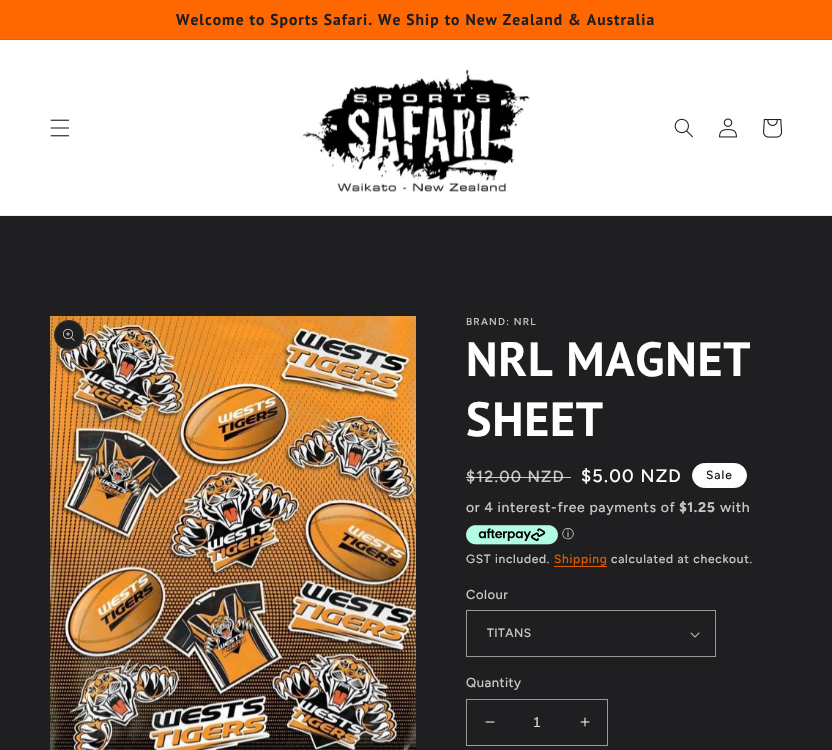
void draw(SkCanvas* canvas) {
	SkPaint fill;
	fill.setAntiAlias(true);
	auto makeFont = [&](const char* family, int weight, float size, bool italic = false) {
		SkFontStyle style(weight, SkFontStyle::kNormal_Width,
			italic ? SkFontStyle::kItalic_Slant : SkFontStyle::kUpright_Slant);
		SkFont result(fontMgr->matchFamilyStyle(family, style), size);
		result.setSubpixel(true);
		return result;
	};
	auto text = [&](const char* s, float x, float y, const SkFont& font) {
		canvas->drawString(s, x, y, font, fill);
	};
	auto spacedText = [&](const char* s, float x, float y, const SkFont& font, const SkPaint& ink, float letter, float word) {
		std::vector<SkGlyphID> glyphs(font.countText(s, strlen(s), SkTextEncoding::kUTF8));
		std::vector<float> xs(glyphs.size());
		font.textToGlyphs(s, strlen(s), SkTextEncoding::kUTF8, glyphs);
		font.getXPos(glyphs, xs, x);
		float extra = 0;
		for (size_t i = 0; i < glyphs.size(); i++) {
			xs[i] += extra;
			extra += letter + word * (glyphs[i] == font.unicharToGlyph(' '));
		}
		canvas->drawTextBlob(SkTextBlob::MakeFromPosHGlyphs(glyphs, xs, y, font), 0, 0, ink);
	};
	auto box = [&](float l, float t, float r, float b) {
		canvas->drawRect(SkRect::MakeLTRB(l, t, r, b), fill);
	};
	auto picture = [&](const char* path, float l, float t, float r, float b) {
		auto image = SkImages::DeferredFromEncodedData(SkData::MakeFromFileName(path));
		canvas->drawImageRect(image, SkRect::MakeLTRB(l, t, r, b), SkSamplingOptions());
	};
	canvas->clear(0xFF1F1F21);
	fill.setColor(0xFFFF6700);
	box(0, 0, 832, 39);
	fill.setColor(0xFFED6103);
	box(0, 39, 832, 40);
	fill.setColor(0xFFFFFFFF);
	box(0, 40, 832, 215);
	fill.setColor(0xFFEDEDED);
	box(0, 215, 832, 216);
	picture("image0.png", 50, 119, 70, 137);
	picture("image1.png", 301, 69, 531, 192);
	picture("image2.png", 674, 118, 693, 138);
	picture("image3.png", 719, 118, 737, 138);
	picture("image4.png", 763, 119, 783, 138);
	picture("image5.png", 50, 316, 416, 750);
	fill.setColor(0xFF1F1F21);
	canvas->drawCircle(69, 335, 15, fill);
	fill.setStyle(SkPaint::kStroke_Style);
	fill.setStrokeWidth(1);
	fill.setColor(0x1AFFFFFF);
	canvas->drawCircle(69, 335, 14.5f, fill);
	picture("image6.png", 63, 329, 75, 341);
	fill.setStyle(SkPaint::kFill_Style);
	fill.setColor(0xFFFFFFFF);
	canvas->drawRoundRect(SkRect::MakeLTRB(692.5f, 463.5f, 746.5f, 487.5f), 12, 12, fill);
	fill.setStyle(SkPaint::kStroke_Style);
	canvas->drawRoundRect(SkRect::MakeLTRB(692.5f, 463.5f, 746.5f, 487.5f), 12, 12, fill);
	picture("image7.png", 466, 525, 558, 545);
	fill.setStyle(SkPaint::kFill_Style);
	fill.setColor(0xFFDD5C05);
	box(554, 566, 607, 567);
	picture("image8.png", 690, 632, 700, 638);
	fill.setStyle(SkPaint::kStroke_Style);
	fill.setColor(0xFF9A9A9B);
	canvas->drawRect(SkRect::MakeLTRB(466.5f, 610.5f, 715.5f, 656.5f), fill);
	picture("image9.png", 485, 721, 495, 723);
	picture("image10.png", 580, 717, 590, 727);
	canvas->drawRect(SkRect::MakeLTRB(466.5f, 699.5f, 607.5f, 745.5f), fill);
	auto font1 = makeFont("PT Sans", 700, 15.6f);
	fill.setStyle(SkPaint::kFill_Style);
	fill.setColor(0xFF1F1F21);
	spacedText("Welcome to Sports Safari. We Ship to New Zealand & Australia", 176, 25, font1, fill, 1, 0);
	auto font2 = makeFont("Figtree", 500, 10);
	fill.setColor(0xFFC7C7C8);
	spacedText("BRAND: NRL", 466, 325, font2, fill, 1.25f, 0);
	auto font3 = makeFont("PT Sans", 700, 48);
	fill.setColor(0xFFFFFFFF);
	spacedText("NRL MAGNET", 466, 376, font3, fill, 0.75f, 0);
	spacedText("SHEET", 466, 436, font3, fill, 0.75f, 0);
	auto font4 = makeFont("Figtree", 500, 16);
	fill.setColor(0xFFC7C7C8);
	spacedText("$12.00 NZD", 466, 482, font4, fill, 1.25f, 0);
	fill.setColor(0xBFFFFFFF);
	box(466, 477, 571, 478);
	auto font5 = makeFont("Figtree", 500, 18);
	fill.setColor(0xFFFFFFFF);
	spacedText("$5.00 NZD", 581, 482, font5, fill, 1.25f, 0);
	auto font6 = makeFont("Figtree", 500, 12);
	fill.setColor(0xFF1F1F21);
	spacedText("Sale", 706, 479, font6, fill, 1, 0);
	auto font7 = makeFont("Figtree", 500, 14);
	fill.setColor(0xFFC7C7C8);
	spacedText("or 4 interest-free payments of", 466, 512, font7, fill, 0.6f, 0);
	auto font8 = makeFont("Figtree", 700, 14);
	spacedText("$1.25", 679, 512, font8, fill, 0.6f, 0);
	spacedText("with", 720, 512, font7, fill, 0.6f, 0);
	auto font9 = makeFont("WenQuanYi Zen Hei", 500, 12);
	text("ⓘ", 562, 538, font9);
	spacedText("GST included.", 466, 563, font6, fill, 0.7f, 0);
	fill.setColor(0xFFDD5C05);
	spacedText("Shipping", 554, 563, font6, fill, 0.7f, 0);
	fill.setColor(0xFFC7C7C8);
	spacedText("calculated at checkout.", 611, 563, font6, fill, 0.7f, 0);
	auto font10 = makeFont("Figtree", 500, 13);
	spacedText("Colour", 466, 599, font10, fill, 0.5f, 0);
	spacedText("TITANS", 487, 637, font6, fill, 0.5f, 0);
	spacedText("Quantity", 466, 687, font10, fill, 0.5f, 0);
	auto font11 = makeFont("Liberation Sans", 400, 14);
	fill.setColor(0xFFDDDDDE);
	text("1", 533, 727, font11);
}
